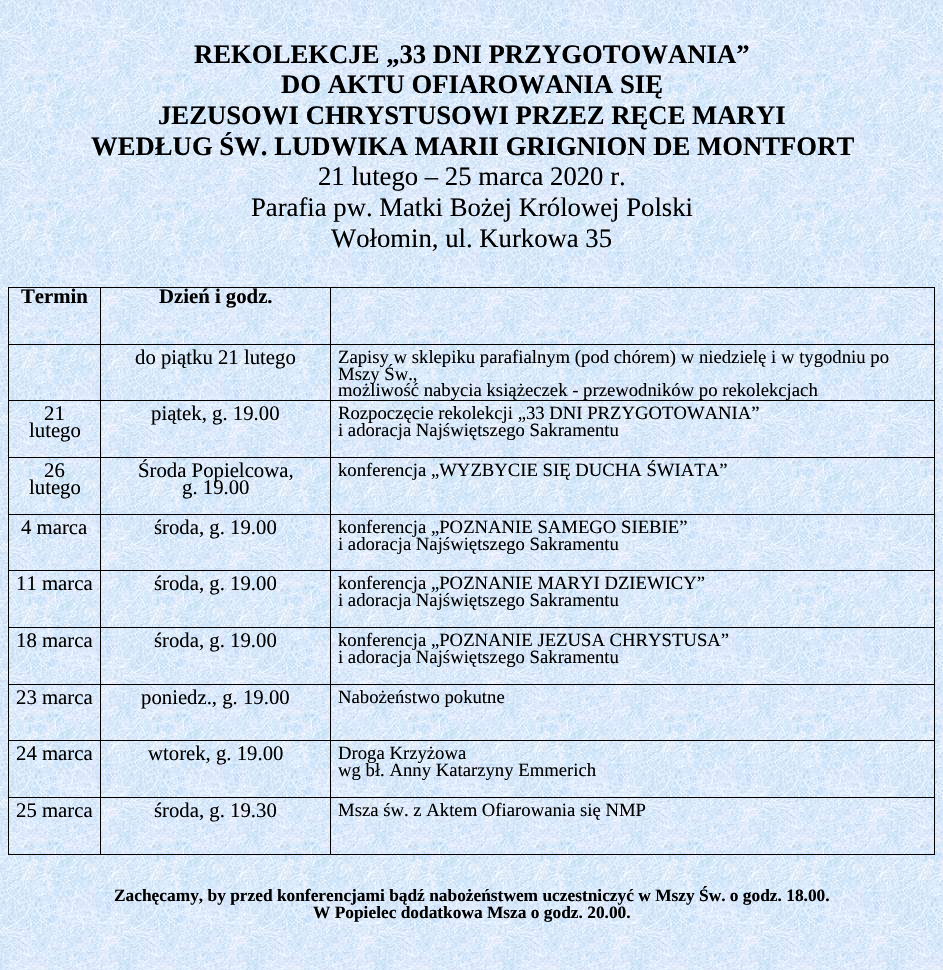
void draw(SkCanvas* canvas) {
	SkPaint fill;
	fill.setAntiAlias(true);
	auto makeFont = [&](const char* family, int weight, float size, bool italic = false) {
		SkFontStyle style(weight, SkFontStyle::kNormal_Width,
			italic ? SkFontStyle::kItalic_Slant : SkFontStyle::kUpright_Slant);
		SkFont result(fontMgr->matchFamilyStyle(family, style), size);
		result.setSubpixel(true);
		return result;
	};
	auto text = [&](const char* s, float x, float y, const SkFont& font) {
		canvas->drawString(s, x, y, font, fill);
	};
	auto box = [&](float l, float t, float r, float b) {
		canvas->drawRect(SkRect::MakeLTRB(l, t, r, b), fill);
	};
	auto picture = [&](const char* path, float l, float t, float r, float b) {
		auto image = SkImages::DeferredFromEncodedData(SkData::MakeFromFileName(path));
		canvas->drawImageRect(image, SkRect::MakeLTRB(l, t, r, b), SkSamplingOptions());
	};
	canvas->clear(0xFFFFFFFF);
	picture("image0.png", 0, 0, 943, 970);
	fill.setColor(0xFF000000);
	box(8, 287, 935, 288);
	box(8, 400, 935, 401);
	box(8, 457, 935, 458);
	box(8, 514, 935, 515);
	box(8, 570, 935, 571);
	box(934, 627, 935, 855);
	box(934, 570, 935, 628);
	box(934, 514, 935, 571);
	box(934, 457, 935, 515);
	box(934, 344, 935, 458);
	box(934, 287, 935, 345);
	box(330, 854, 935, 855);
	box(330, 797, 331, 855);
	box(330, 797, 935, 798);
	box(330, 740, 331, 798);
	box(330, 740, 935, 741);
	box(330, 684, 331, 741);
	box(330, 684, 935, 685);
	box(330, 627, 331, 685);
	box(330, 627, 935, 628);
	box(330, 570, 331, 628);
	box(330, 514, 331, 571);
	box(330, 457, 331, 515);
	box(330, 344, 331, 458);
	box(330, 344, 935, 345);
	box(330, 287, 331, 345);
	box(100, 854, 331, 855);
	box(100, 797, 101, 855);
	box(100, 797, 331, 798);
	box(100, 740, 101, 798);
	box(100, 740, 331, 741);
	box(100, 684, 101, 741);
	box(100, 684, 331, 685);
	box(100, 627, 101, 685);
	box(100, 627, 331, 628);
	box(100, 570, 101, 628);
	box(100, 514, 101, 571);
	box(100, 457, 101, 515);
	box(100, 344, 101, 458);
	box(100, 344, 331, 345);
	box(100, 287, 101, 345);
	box(8, 854, 101, 855);
	box(8, 797, 9, 855);
	box(8, 797, 101, 798);
	box(8, 740, 9, 798);
	box(8, 740, 101, 741);
	box(8, 684, 9, 741);
	box(8, 684, 101, 685);
	box(8, 627, 9, 685);
	box(8, 627, 101, 628);
	box(8, 570, 9, 628);
	box(8, 514, 9, 571);
	box(8, 457, 9, 515);
	box(8, 344, 9, 458);
	box(8, 344, 101, 345);
	box(8, 287, 9, 345);
	auto font1 = makeFont("Liberation Serif", 700, 26.7f);
	text("REKOLEKCJE „33 DNI PRZYGOTOWANIA”", 194, 63, font1);
	text("DO AKTU OFIAROWANIA SIĘ", 281, 93, font1);
	text("JEZUSOWI CHRYSTUSOWI PRZEZ RĘCE MARYI", 158, 124, font1);
	text("WEDŁUG ŚW. LUDWIKA MARII GRIGNION DE MONTFORT", 91, 155, font1);
	auto font2 = makeFont("Liberation Serif", 400, 26.7f);
	text("21 lutego – 25 marca 2020 r.", 318, 185, font2);
	text("Parafia pw. Matki Bożej Królowej Polski", 251, 216, font2);
	text("Wołomin, ul. Kurkowa 35", 331, 247, font2);
	auto font3 = makeFont("Liberation Serif", 700, 20.75f);
	text("Termin", 21, 303, font3);
	text("Dzień i godz.", 159, 303, font3);
	auto font4 = makeFont("Liberation Serif", 400, 20.75f);
	text("do piątku 21 lutego", 135, 364, font4);
	auto font5 = makeFont("Liberation Serif", 400, 18.7f);
	text("Zapisy w sklepiku parafialnym (pod chórem) w niedzielę i w tygodniu po", 338, 363, font5);
	text("Mszy Św.,", 338, 380, font5);
	text("możliwość nabycia książeczek - przewodników po rekolekcjach", 338, 396, font5);
	text("21", 44, 420, font4);
	text("lutego", 29, 437, font4);
	text("piątek, g. 19.00", 151, 420, font4);
	text("Rozpoczęcie rekolekcji „33 DNI PRZYGOTOWANIA”", 338, 419, font5);
	text("i adoracja Najświętszego Sakramentu", 338, 436, font5);
	text("26", 44, 477, font4);
	text("lutego", 29, 494, font4);
	text("Środa Popielcowa,", 138, 477, font4);
	text("g. 19.00", 182, 494, font4);
	text("konferencja „WYZBYCIE SIĘ DUCHA ŚWIATA”", 338, 476, font5);
	text("4 marca", 21, 534, font4);
	text("środa, g. 19.00", 154, 534, font4);
	text("konferencja „POZNANIE SAMEGO SIEBIE”", 338, 533, font5);
	text("i adoracja Najświętszego Sakramentu", 338, 550, font5);
	text("11 marca", 16, 590, font4);
	text("środa, g. 19.00", 154, 590, font4);
	text("konferencja „POZNANIE MARYI DZIEWICY”", 338, 589, font5);
	text("i adoracja Najświętszego Sakramentu", 338, 606, font5);
	text("18 marca", 16, 647, font4);
	text("środa, g. 19.00", 154, 647, font4);
	text("konferencja „POZNANIE JEZUSA CHRYSTUSA”", 338, 646, font5);
	text("i adoracja Najświętszego Sakramentu", 338, 663, font5);
	text("23 marca", 16, 704, font4);
	text("poniedz., g. 19.00", 141, 704, font4);
	text("Nabożeństwo pokutne", 338, 703, font5);
	text("24 marca", 16, 760, font4);
	text("wtorek, g. 19.00", 148, 760, font4);
	text("Droga Krzyżowa", 338, 759, font5);
	text("wg bł. Anny Katarzyny Emmerich", 338, 776, font5);
	text("25 marca", 16, 817, font4);
	text("środa, g. 19.30", 154, 817, font4);
	text("Msza św. z Aktem Ofiarowania się NMP", 338, 816, font5);
	auto font6 = makeFont("Liberation Serif", 700, 17.35f);
	text("Zachęcamy, by przed konferencjami bądź nabożeństwem uczestniczyć w Mszy Św. o godz. 18.00.", 114, 901, font6);
	text("W Popielec dodatkowa Msza o godz. 20.00.", 313, 918, font6);
}
